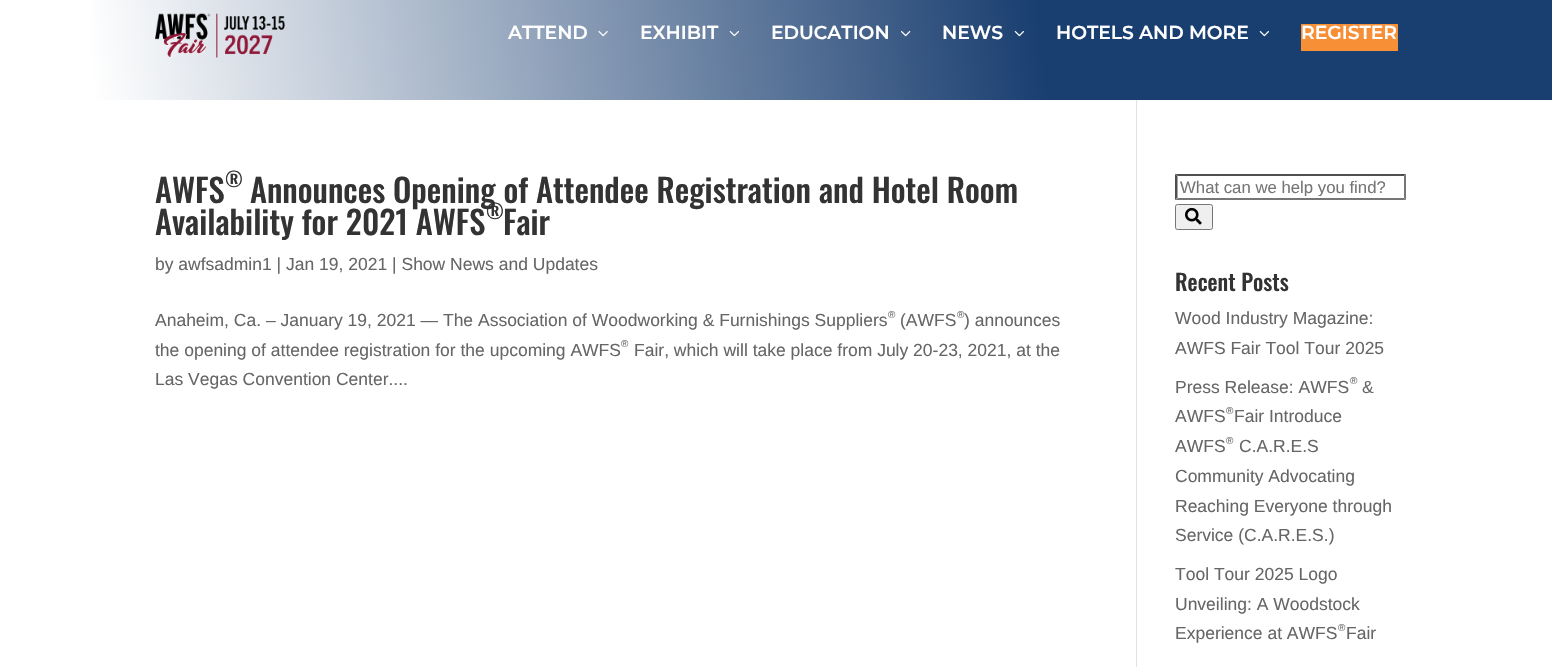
void draw(SkCanvas* canvas) {
	SkPaint fill;
	fill.setAntiAlias(true);
	auto makeFont = [&](const char* family, int weight, float size, bool italic = false) {
		SkFontStyle style(weight, SkFontStyle::kNormal_Width,
			italic ? SkFontStyle::kItalic_Slant : SkFontStyle::kUpright_Slant);
		SkFont result(fontMgr->matchFamilyStyle(family, style), size);
		result.setSubpixel(true);
		return result;
	};
	auto text = [&](const char* s, float x, float y, const SkFont& font) {
		canvas->drawString(s, x, y, font, fill);
	};
	auto box = [&](float l, float t, float r, float b) {
		canvas->drawRect(SkRect::MakeLTRB(l, t, r, b), fill);
	};
	auto picture = [&](const char* path, float l, float t, float r, float b) {
		auto image = SkImages::DeferredFromEncodedData(SkData::MakeFromFileName(path));
		canvas->drawImageRect(image, SkRect::MakeLTRB(l, t, r, b), SkSamplingOptions());
	};
	canvas->clear(0xFFFFFFFF);
	{
		const SkColor colors[] = {0xFFFFFFFF, 0xFF193E70};
		const float stops[] = {0.06f, 0.67f};
		const SkPoint ends[] = {{5.5f, 145}, {1547, -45}};
		fill.setShader(SkGradientShader::MakeLinear(ends, colors, stops, 2, SkTileMode::kClamp));
		fill.setAlpha(255);
	}
	box(92, 0, 1552, 100);
	picture("image0.png", 155, 13, 285, 58);
	picture("image1.png", 598, 31, 608, 37);
	picture("image2.png", 729, 31, 739, 37);
	picture("image3.png", 901, 31, 911, 37);
	picture("image4.png", 1014, 31, 1024, 37);
	picture("image5.png", 1259, 31, 1269, 37);
	fill.setShader(nullptr);
	fill.setColor(0xFFF78F36);
	box(1301, 24, 1398, 51);
	fill.setColor(0xFFE2E2E2);
	box(1136, 100, 1137, 667);
	fill.setColor(0xFF4F4F4F);
	canvas->drawPath(SkPathBuilder().moveTo(1175, 174).lineTo(1406, 174).lineTo(1404, 176).lineTo(1178, 176).close().detach(), fill);
	fill.setColor(0xFF767676);
	canvas->drawPath(SkPathBuilder().moveTo(1406, 174).lineTo(1406, 200).lineTo(1404, 197.5f).lineTo(1404, 176).close().detach(), fill);
	canvas->drawPath(SkPathBuilder().moveTo(1406, 200).lineTo(1175, 200).lineTo(1178, 198).lineTo(1404, 198).close().detach(), fill);
	fill.setColor(0xFF4F4F4F);
	canvas->drawPath(SkPathBuilder().moveTo(1175, 200).lineTo(1175, 174).lineTo(1177.5f, 176).lineTo(1177.5f, 197.5f).close().detach(), fill);
	fill.setColor(0xFFEFEFEF);
	canvas->drawRoundRect(SkRect::MakeLTRB(1175.5f, 204.5f, 1212.5f, 229.5f), 2, 2, fill);
	fill.setStyle(SkPaint::kStroke_Style);
	fill.setStrokeWidth(1);
	fill.setColor(0xFF767676);
	canvas->drawRoundRect(SkRect::MakeLTRB(1175.5f, 204.5f, 1212.5f, 229.5f), 2, 2, fill);
	picture("image6.png", 1185, 207, 1202, 225);
	auto font1 = makeFont("Montserrat", 600, 18.75f);
	fill.setStyle(SkPaint::kFill_Style);
	fill.setColor(0xFFFFFFFF);
	text("ATTEND", 508, 39, font1);
	text("EXHIBIT", 640, 39, font1);
	text("EDUCATION", 771, 39, font1);
	text("NEWS", 942, 39, font1);
	text("HOTELS AND MORE", 1056, 39, font1);
	text("REGISTER", 1301, 39, font1);
	auto font2 = makeFont("Oswald", 500, 32.5f);
	fill.setColor(0xFF333333);
	text("AWFS", 155, 203, font2);
	auto font3 = makeFont("Oswald", 500, 20);
	text("®", 225, 187, font3);
	text("Announces Opening of Attendee Registration and Hotel Room", 250, 203, font2);
	text("Availability for 2021 AWFS", 155, 235, font2);
	text("®", 486, 219, font3);
	text("Fair", 503, 235, font2);
	auto font4 = makeFont("Liberation Sans", 400, 17.5f);
	fill.setColor(0xFF666666);
	text("by awfsadmin1 | Jan 19, 2021 | Show News and Updates", 155, 270, font4);
	text("Anaheim, Ca. – January 19, 2021 — The Association of Woodworking & Furnishings Suppliers", 155, 326, font4);
	auto font5 = makeFont("Liberation Sans", 400, 10);
	text("®", 888, 318, font5);
	text("(AWFS", 900, 326, font4);
	text(") announces", 964, 326, font4);
	text("®", 957, 318, font5);
	text("the opening of attendee registration for the upcoming AWFS", 155, 356, font4);
	text("®", 621, 347, font5);
	text("Fair, which will take place from July 20-23, 2021, at the", 634, 356, font4);
	text("Las Vegas Convention Center....", 155, 385, font4);
	canvas->save();
	canvas->clipRect(SkRect::MakeLTRB(1180, 178, 1385, 196));
	auto font6 = makeFont("Liberation Sans", 400, 16.75f);
	fill.setColor(0xFF757575);
	text("What can we help you find?", 1180, 193, font6);
	canvas->restore();
	auto font7 = makeFont("Oswald", 500, 22.5f);
	fill.setColor(0xFF333333);
	text("Recent Posts", 1175, 291, font7);
	fill.setColor(0xFF666666);
	text("Wood Industry Magazine:", 1175, 324, font4);
	text("AWFS Fair Tool Tour 2025", 1175, 354, font4);
	text("Press Release: AWFS", 1175, 393, font4);
	text("®", 1350, 384, font5);
	text("&", 1362, 393, font4);
	text("AWFS", 1175, 422, font4);
	text("®", 1226, 414, font5);
	text("Fair Introduce", 1234, 422, font4);
	text("AWFS", 1175, 452, font4);
	text("®", 1226, 444, font5);
	text("C.A.R.E.S", 1239, 452, font4);
	text("Community Advocating", 1175, 482, font4);
	text("Reaching Everyone through", 1175, 512, font4);
	text("Service (C.A.R.E.S.)", 1175, 541, font4);
	text("Tool Tour 2025 Logo", 1175, 580, font4);
	text("Unveiling: A Woodstock", 1175, 610, font4);
	text("Experience at AWFS", 1175, 639, font4);
	text("®", 1338, 631, font5);
	text("Fair", 1346, 639, font4);
}
